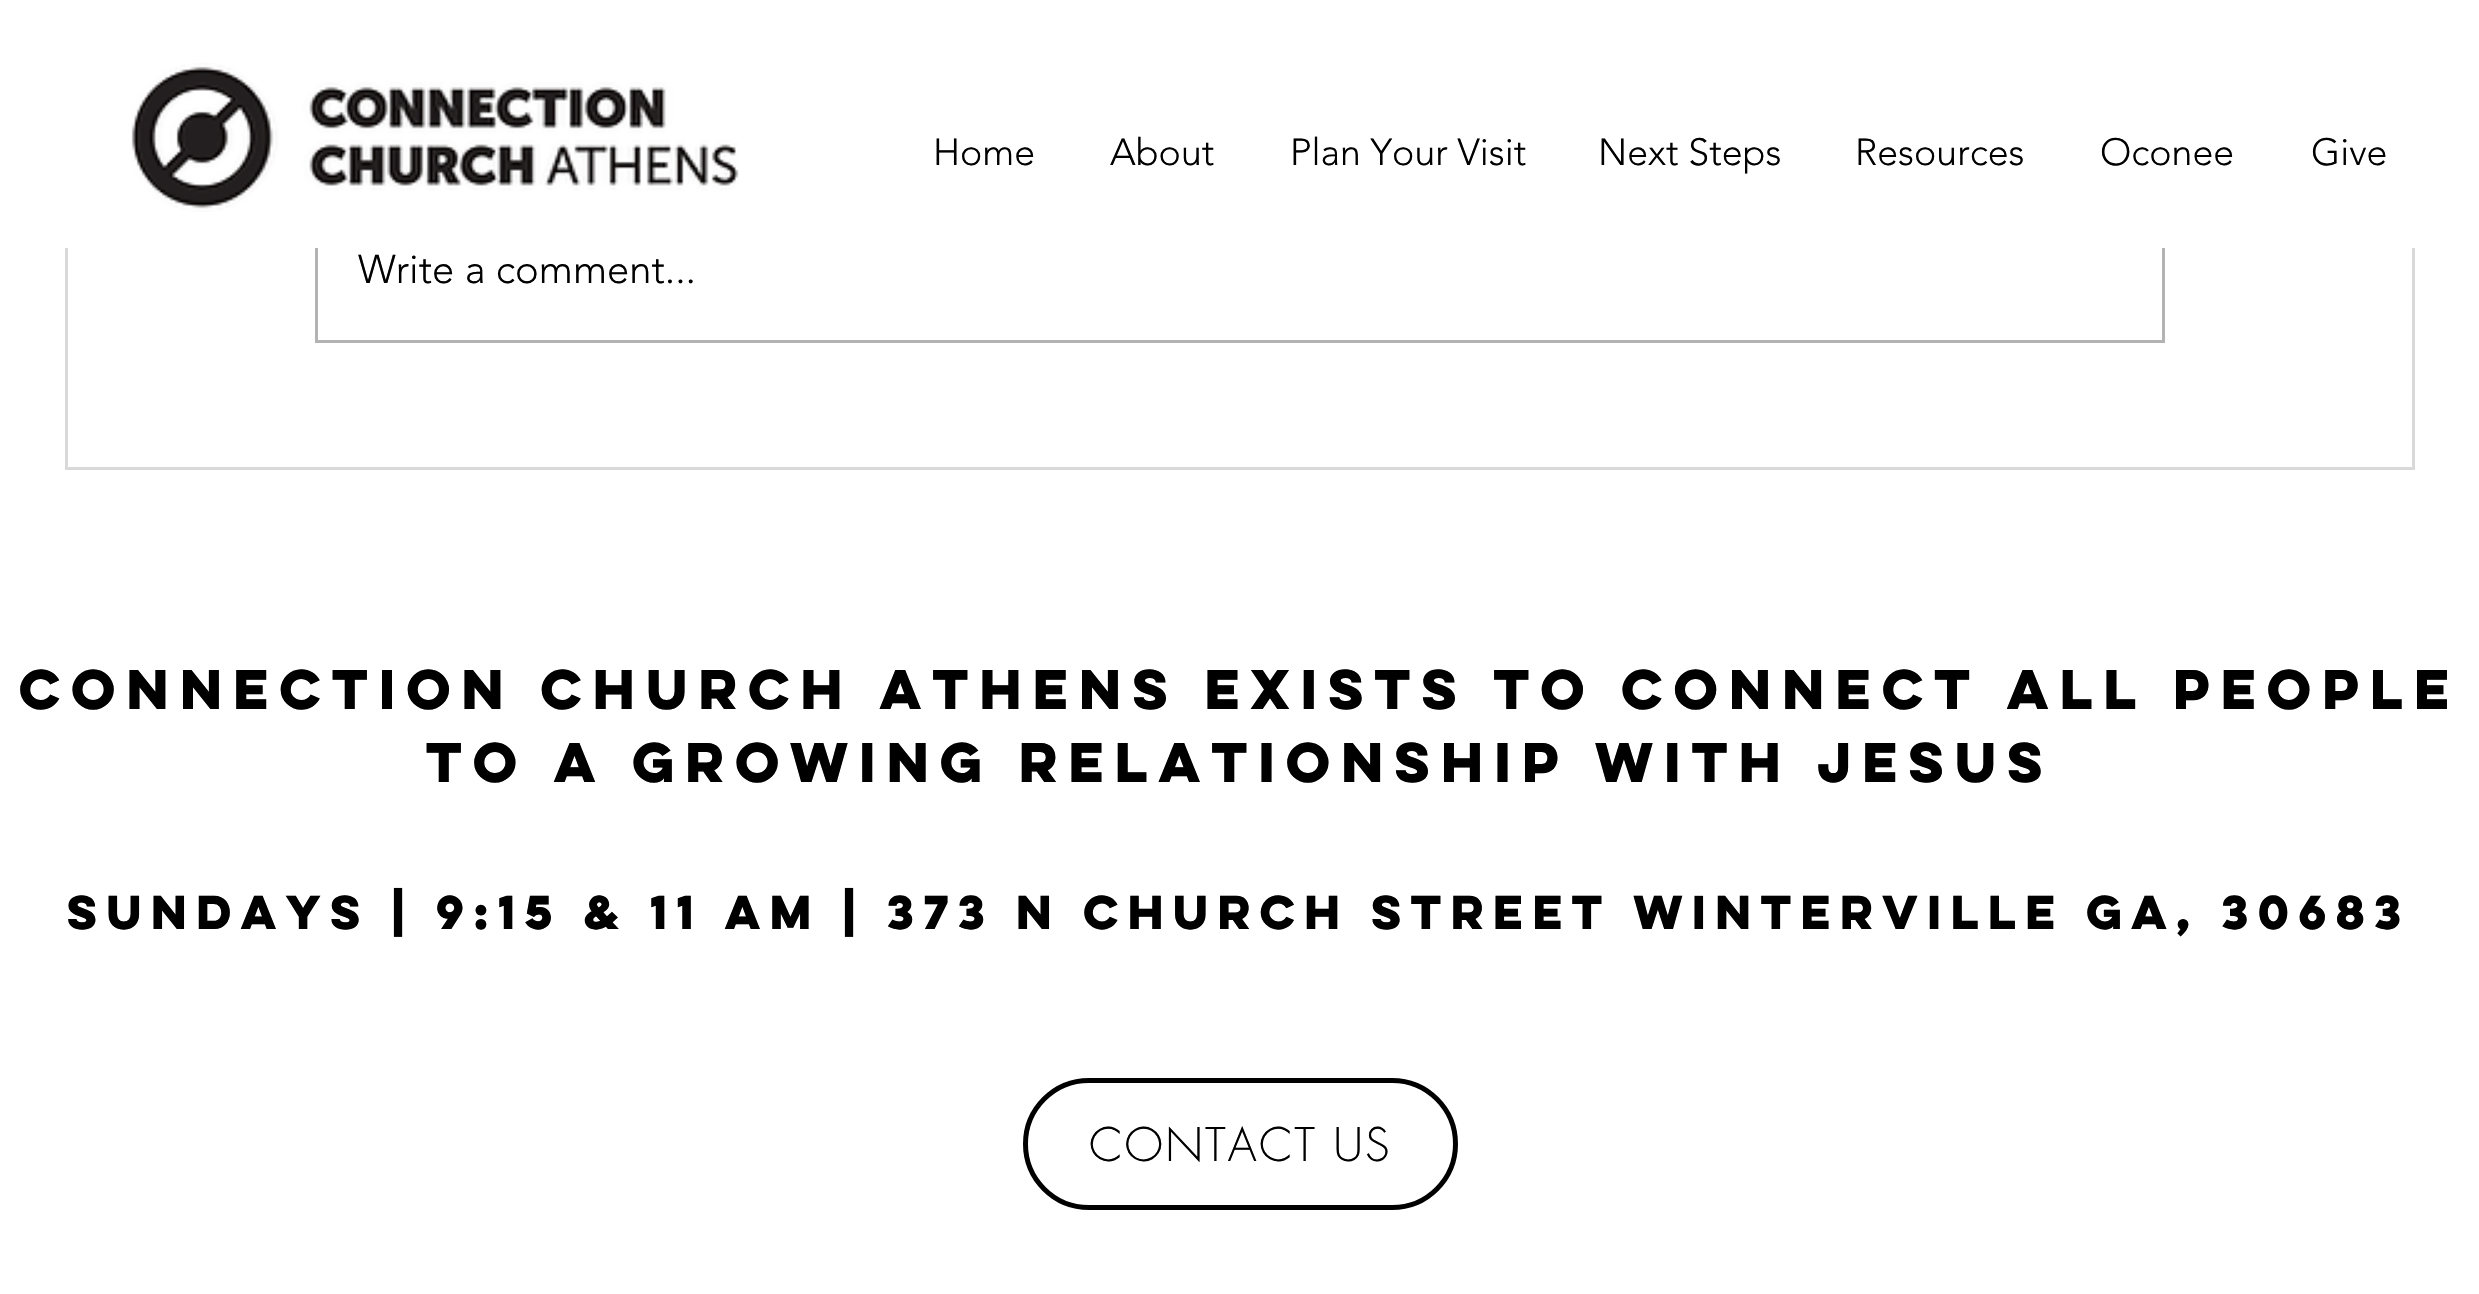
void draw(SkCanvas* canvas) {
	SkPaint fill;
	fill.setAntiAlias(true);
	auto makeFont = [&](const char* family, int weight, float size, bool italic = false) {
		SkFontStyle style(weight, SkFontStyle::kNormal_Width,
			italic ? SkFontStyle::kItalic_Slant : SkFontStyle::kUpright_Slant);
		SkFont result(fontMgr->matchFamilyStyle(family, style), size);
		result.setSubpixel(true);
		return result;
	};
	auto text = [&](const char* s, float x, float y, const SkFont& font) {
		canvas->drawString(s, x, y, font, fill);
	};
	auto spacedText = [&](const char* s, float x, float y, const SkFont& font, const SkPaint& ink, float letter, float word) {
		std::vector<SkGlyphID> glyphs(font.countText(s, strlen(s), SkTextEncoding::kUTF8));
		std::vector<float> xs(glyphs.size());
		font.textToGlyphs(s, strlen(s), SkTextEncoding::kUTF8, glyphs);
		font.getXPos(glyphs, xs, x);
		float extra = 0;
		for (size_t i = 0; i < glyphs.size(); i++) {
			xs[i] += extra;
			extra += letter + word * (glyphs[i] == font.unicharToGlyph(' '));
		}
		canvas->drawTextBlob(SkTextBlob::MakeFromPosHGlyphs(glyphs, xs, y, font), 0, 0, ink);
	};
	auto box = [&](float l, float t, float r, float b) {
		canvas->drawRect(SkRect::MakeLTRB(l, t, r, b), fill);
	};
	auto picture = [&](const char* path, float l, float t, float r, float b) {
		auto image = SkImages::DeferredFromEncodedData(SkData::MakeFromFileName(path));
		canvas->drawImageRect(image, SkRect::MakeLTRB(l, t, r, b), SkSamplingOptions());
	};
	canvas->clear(0xFFFFFFFF);
	fill.setStyle(SkPaint::kStroke_Style);
	fill.setStrokeWidth(3);
	fill.setColor(0xFFD9D9D9);
	canvas->drawRect(SkRect::MakeLTRB(66.5f, -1.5f, 2413.5f, 468.5f), fill);
	fill.setColor(0xFFB3B3B3);
	canvas->drawRect(SkRect::MakeLTRB(316.5f, 199.5f, 2163.5f, 341.5f), fill);
	fill.setStyle(SkPaint::kFill_Style);
	fill.setColor(0xFFFFFFFF);
	box(65, 0, 2415, 248);
	picture("image0.png", 131, 63, 739, 212);
	fill.setStyle(SkPaint::kStroke_Style);
	fill.setStrokeWidth(5);
	fill.setColor(0xFF000000);
	canvas->drawRoundRect(SkRect::MakeLTRB(1025.5f, 1080.5f, 1455.5f, 1207.5f), 63.5f, 63.5f, fill);
	auto font1 = makeFont("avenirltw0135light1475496", 300, 37.5f);
	fill.setStyle(SkPaint::kFill_Style);
	text("Home", 933, 165, font1);
	text("About", 1110, 165, font1);
	text("Plan Your Visit", 1290, 165, font1);
	text("Next Steps", 1598, 165, font1);
	text("Resources", 1855, 165, font1);
	text("Oconee", 2100, 165, font1);
	text("Give", 2311, 165, font1);
	auto font2 = makeFont("avenirltw0135light1475496", 300, 40);
	text("Write a comment...", 358, 283, font2);
	auto font3 = makeFont("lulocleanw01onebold", 700, 50);
	text("Connection Church Athens exists to connect All People", 19, 709, font3);
	text("to a growing relationship with Jesus", 426, 782, font3);
	auto font4 = makeFont("lulocleanw01onebold", 700, 42.5f);
	text("SUNDays | 9:15 & 11 AM | 373 N Church Street Winterville Ga, 30683", 67, 929, font4);
	auto font5 = makeFont("futura", 300, 45);
	spacedText("CONTACT US", 1089, 1161, font5, fill, 2.25f, 0);
}
